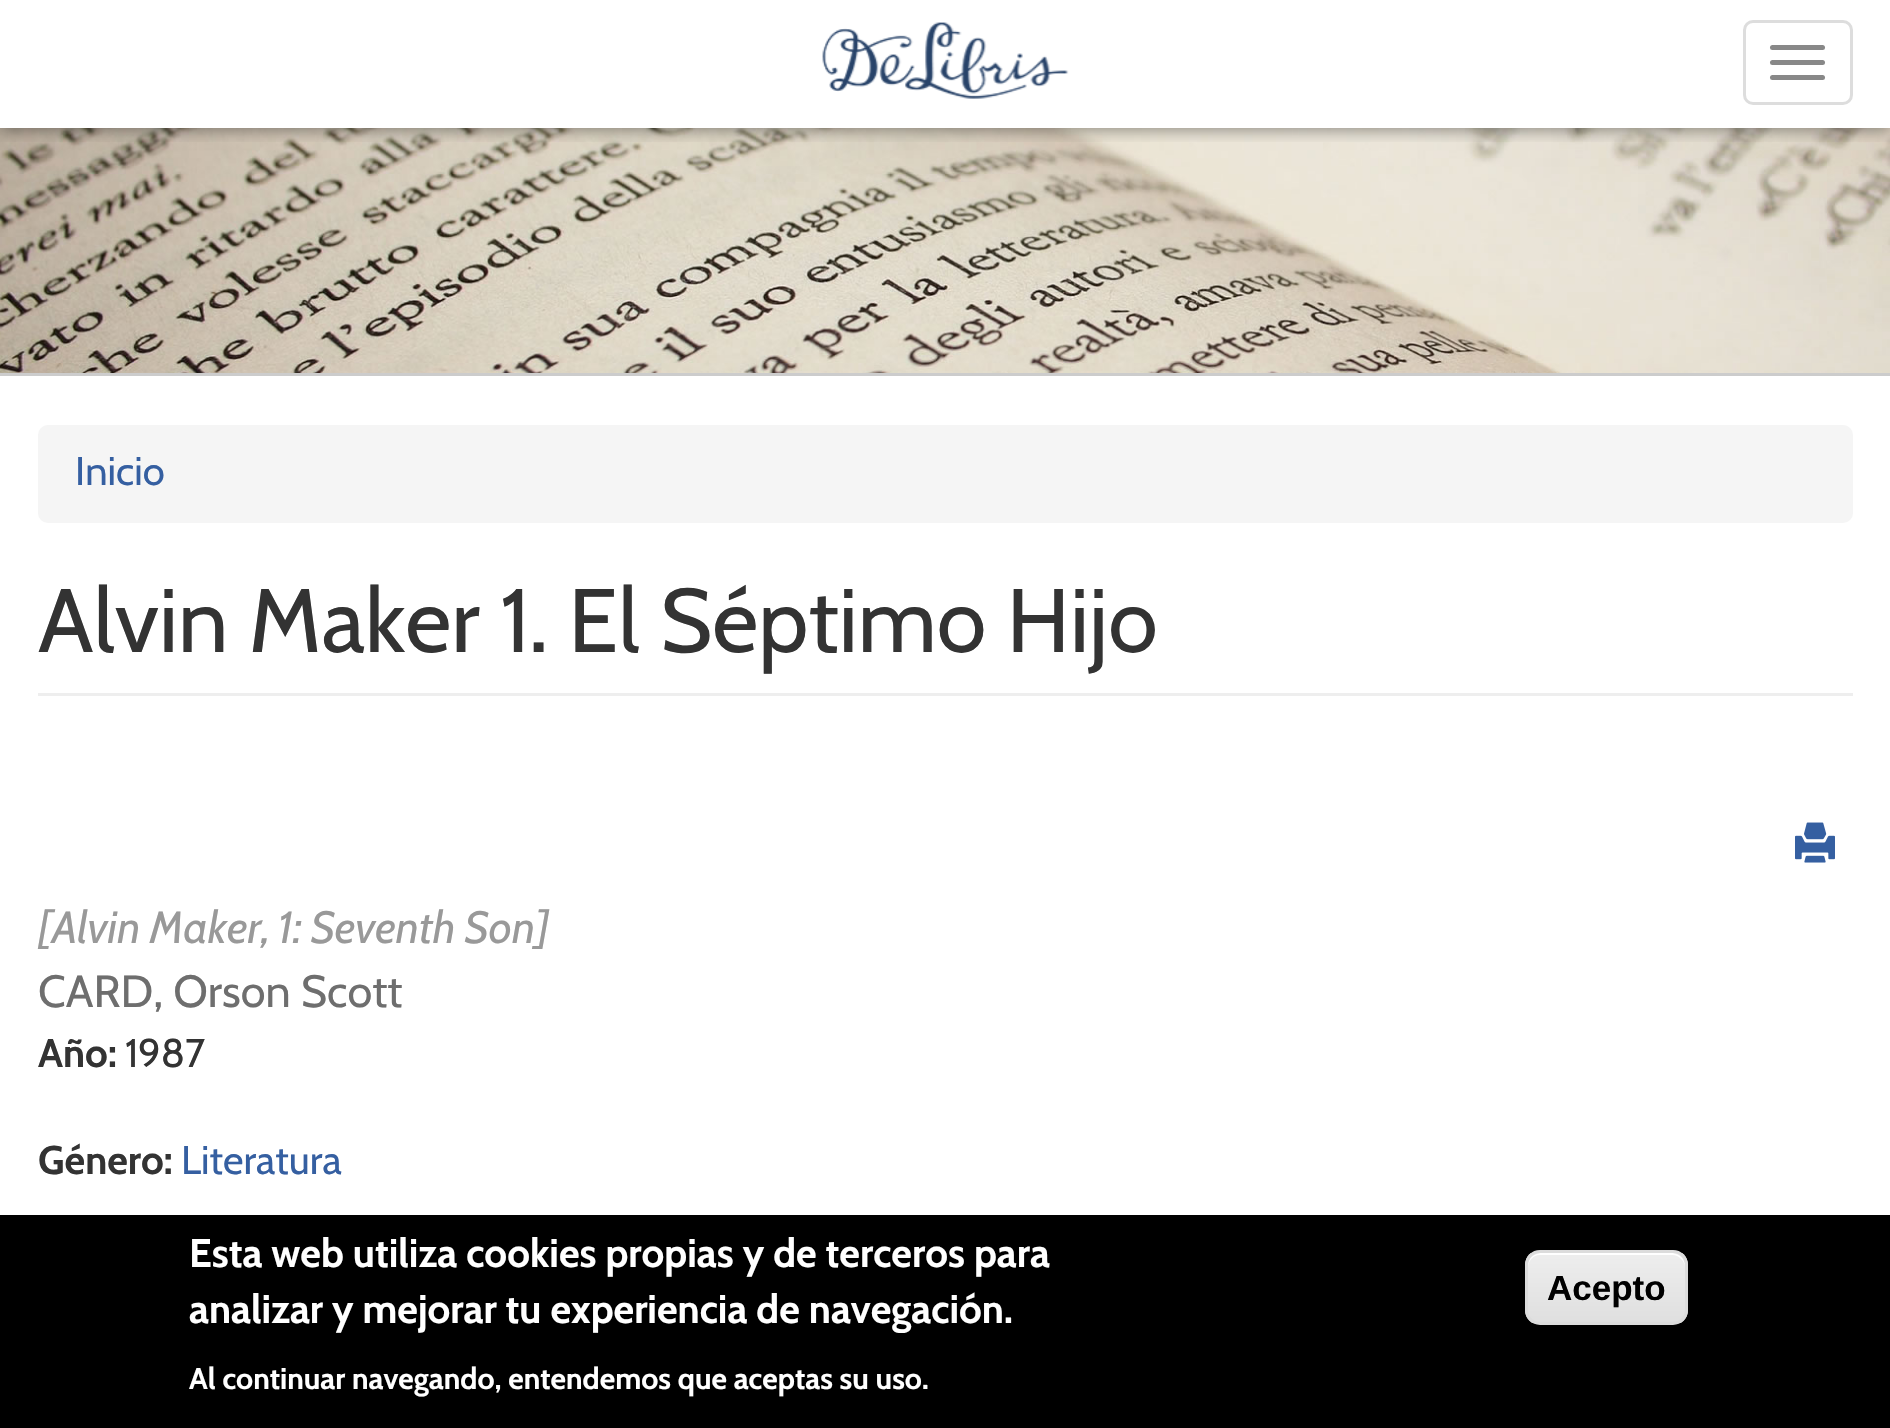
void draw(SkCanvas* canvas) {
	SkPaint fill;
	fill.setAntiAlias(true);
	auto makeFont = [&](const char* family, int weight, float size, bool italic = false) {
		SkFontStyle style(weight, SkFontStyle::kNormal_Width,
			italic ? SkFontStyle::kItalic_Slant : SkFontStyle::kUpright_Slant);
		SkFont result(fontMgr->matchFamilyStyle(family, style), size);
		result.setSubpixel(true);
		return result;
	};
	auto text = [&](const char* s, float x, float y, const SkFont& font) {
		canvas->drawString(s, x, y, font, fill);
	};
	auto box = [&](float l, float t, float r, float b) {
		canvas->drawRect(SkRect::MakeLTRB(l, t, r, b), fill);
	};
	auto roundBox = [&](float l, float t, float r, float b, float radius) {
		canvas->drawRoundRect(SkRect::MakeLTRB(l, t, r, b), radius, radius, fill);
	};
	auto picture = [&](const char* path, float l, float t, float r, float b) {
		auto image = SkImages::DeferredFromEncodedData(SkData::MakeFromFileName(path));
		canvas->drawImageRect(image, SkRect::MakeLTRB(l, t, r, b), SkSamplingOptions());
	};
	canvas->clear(0xFFFFFFFF);
	picture("image1.png", 0, 128, 1890, 373);
	canvas->save();
	canvas->clipRect(SkRect::MakeLTRB(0, 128, 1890, 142));
	fill.setColor(0x66000000);
	fill.setMaskFilter(SkMaskFilter::MakeBlur(kNormal_SkBlurStyle, 7.5f));
	canvas->drawRect(SkRect::MakeLTRB(0, 3, 1890, 130), fill);
	fill.setMaskFilter(nullptr);
	canvas->restore();
	fill.setColor(0xFFFFFFFF);
	box(0, 127, 1890, 128);
	picture("image0.png", 822, 22, 1069, 99);
	fill.setStyle(SkPaint::kStroke_Style);
	fill.setStrokeWidth(3);
	fill.setColor(0xFFDDDDDD);
	canvas->drawRoundRect(SkRect::MakeLTRB(1744.5f, 21.5f, 1851.5f, 103.5f), 8.5f, 8.5f, fill);
	fill.setStyle(SkPaint::kFill_Style);
	fill.setColor(0xFF888888);
	roundBox(1770, 45, 1825, 50, 2.5f);
	roundBox(1770, 60, 1825, 65, 2.5f);
	roundBox(1770, 75, 1825, 80, 2.5f);
	fill.setColor(0xFFCCCCCC);
	box(0, 373, 1890, 376);
	fill.setColor(0xFFF5F5F5);
	roundBox(38, 425, 1853, 523, 10);
	fill.setColor(0xFFEEEEEE);
	box(38, 693, 1853, 696);
	picture("image2.png", 1795, 822, 1835, 863);
	fill.setColor(0xFF000000);
	box(0, 1215, 1890, 1428);
	canvas->save();
	canvas->clipPath(SkPathBuilder().moveTo(1540, 1250).lineTo(1673, 1250).cubicTo(1681.5f, 1250, 1688, 1256.5f, 1688, 1265).lineTo(1688, 1310).cubicTo(1688, 1318.5f, 1681.5f, 1325, 1673, 1325).lineTo(1540, 1325).cubicTo(1531.5f, 1325, 1525, 1318.5f, 1525, 1310).lineTo(1525, 1265).cubicTo(1525, 1256.5f, 1531.5f, 1250, 1540, 1250).close().detach(), true);
	{
		const SkColor colors[] = {0xFFEDEDED, 0xFFDFDFDF};
		const float stops[] = {0.05f, 1};
		const SkPoint ends[] = {{1606, 1253}, {1606, 1323}};
		fill.setShader(SkGradientShader::MakeLinear(ends, colors, stops, 2, SkTileMode::kClamp));
		fill.setAlpha(255);
	}
	box(1525, 1253, 1688, 1323);
	canvas->restore();
	fill.setShader(nullptr);
	fill.setColor(0xFFFFFFFF);
	canvas->drawPath(SkPathBuilder().moveTo(1540, 1255).lineTo(1672, 1255).cubicTo(1679, 1255, 1685, 1261, 1685, 1268).cubicTo(1685, 1248, 1664, 1253, 1650, 1253).lineTo(1563, 1253).cubicTo(1549, 1253, 1528, 1248, 1528, 1268).cubicTo(1528, 1261, 1533, 1255, 1540, 1255).close().detach(), fill);
	fill.setStyle(SkPaint::kStroke_Style);
	fill.setColor(0xFFDCDCDC);
	canvas->drawRoundRect(SkRect::MakeLTRB(1526.5f, 1251.5f, 1686.5f, 1323.5f), 13.5f, 13.5f, fill);
	auto font1 = makeFont("Cabin", 400, 40);
	fill.setStyle(SkPaint::kFill_Style);
	fill.setColor(0xFF355FA1);
	text("Inicio", 75, 485, font1);
	auto font2 = makeFont("Cabin", 400, 90);
	fill.setColor(0xFF333333);
	text("Alvin Maker 1. El Séptimo Hijo", 38, 652, font2);
	auto font3 = makeFont("Cabin", 400, 45, true);
	fill.setColor(0xFF999999);
	text("[Alvin Maker, 1: Seventh Son]", 38, 943, font3);
	auto font4 = makeFont("Cabin", 400, 45);
	fill.setColor(0xFF6E6E6E);
	text("CARD, Orson Scott", 38, 1007, font4);
	auto font5 = makeFont("Cabin", 700, 40);
	fill.setColor(0xFF333333);
	text("Año:", 38, 1067, font5);
	text("1987", 125, 1067, font1);
	text("Género:", 38, 1174, font5);
	fill.setColor(0xFF355FA1);
	text("Literatura", 181, 1174, font1);
	fill.setColor(0xFFFFFFFF);
	text("Esta web utiliza cookies propias y de terceros para", 189, 1267, font5);
	text("analizar y mejorar tu experiencia de navegación.", 189, 1323, font5);
	auto font6 = makeFont("Cabin", 700, 30);
	text("Al continuar navegando, entendemos que aceptas su uso.", 189, 1389, font6);
	auto font7 = makeFont("Liberation Sans", 700, 35);
	fill.setColor(0xFF000000);
	text("Acepto", 1547, 1300, font7);
}
